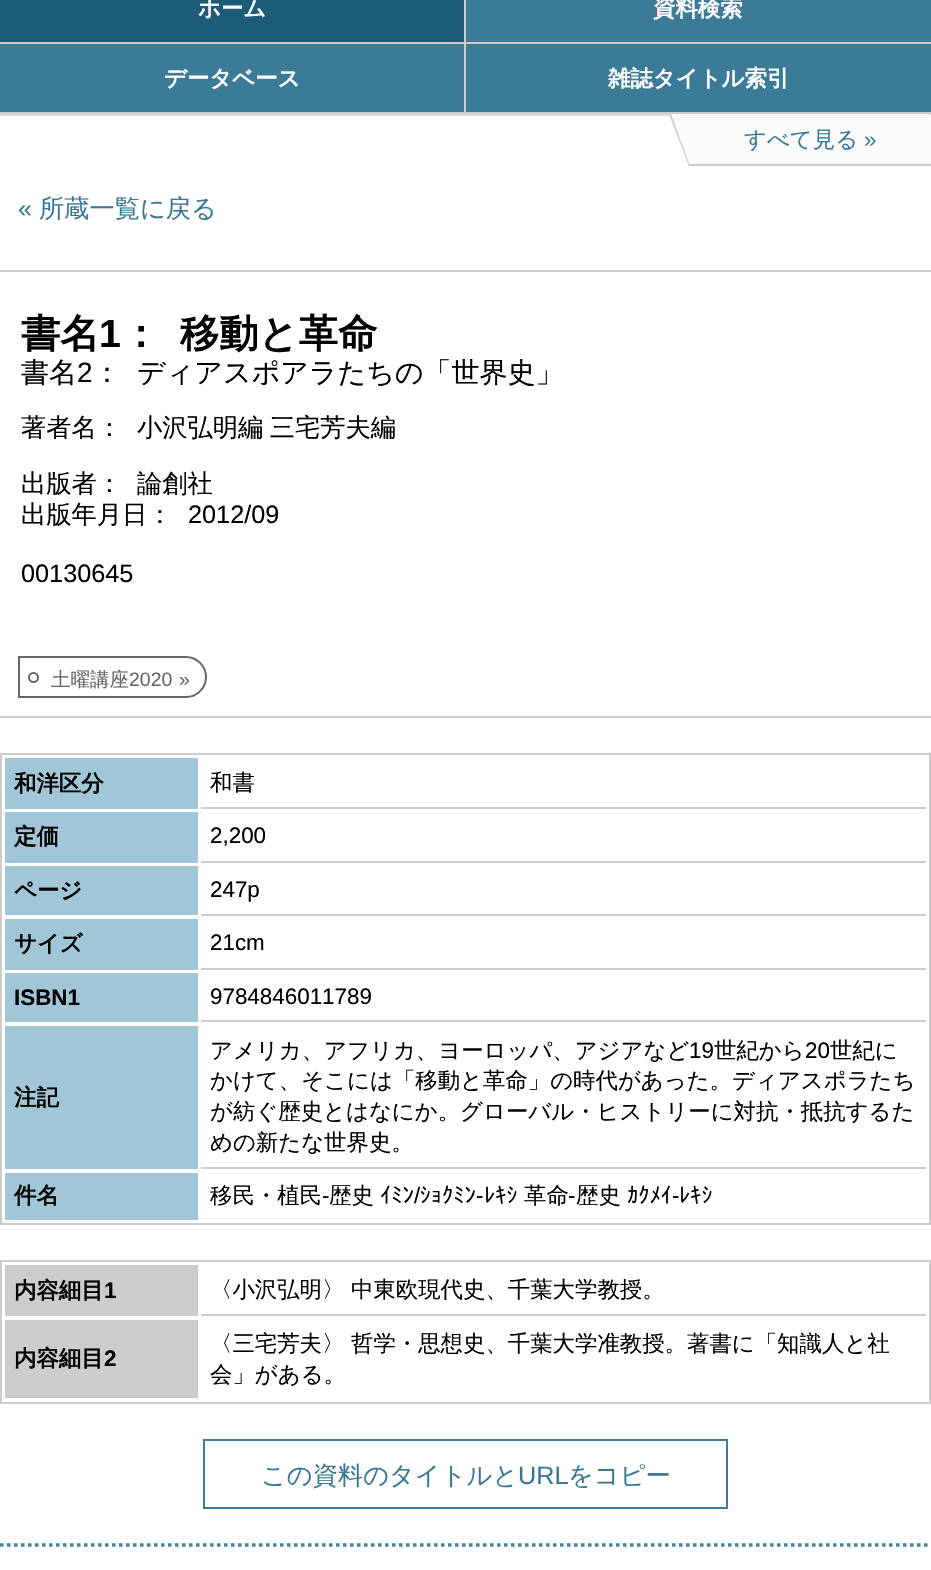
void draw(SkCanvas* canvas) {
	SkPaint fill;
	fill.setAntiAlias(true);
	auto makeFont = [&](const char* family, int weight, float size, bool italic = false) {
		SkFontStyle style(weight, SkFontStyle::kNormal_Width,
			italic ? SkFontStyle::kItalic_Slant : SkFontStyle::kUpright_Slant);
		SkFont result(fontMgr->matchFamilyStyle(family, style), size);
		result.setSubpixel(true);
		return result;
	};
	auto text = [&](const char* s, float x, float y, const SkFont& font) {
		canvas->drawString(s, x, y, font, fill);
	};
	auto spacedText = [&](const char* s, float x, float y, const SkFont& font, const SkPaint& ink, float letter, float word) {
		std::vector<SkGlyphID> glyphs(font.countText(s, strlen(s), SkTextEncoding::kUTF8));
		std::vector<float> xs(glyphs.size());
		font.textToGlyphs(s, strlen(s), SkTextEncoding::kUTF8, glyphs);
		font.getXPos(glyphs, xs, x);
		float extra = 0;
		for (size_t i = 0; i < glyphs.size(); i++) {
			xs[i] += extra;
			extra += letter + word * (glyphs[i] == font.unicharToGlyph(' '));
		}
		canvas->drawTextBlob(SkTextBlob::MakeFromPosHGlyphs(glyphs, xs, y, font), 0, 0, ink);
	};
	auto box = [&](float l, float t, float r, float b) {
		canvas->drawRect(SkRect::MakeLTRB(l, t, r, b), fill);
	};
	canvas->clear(0xFFFFFFFF);
	fill.setColor(0xFFDDDDDD);
	box(0, 114, 931, 116);
	fill.setColor(0xFFCCCCCC);
	box(464, 0, 466, 114);
	box(0, 42, 931, 44);
	fill.setColor(0xFF1C5C79);
	box(0, 0, 464, 42);
	fill.setColor(0xFF3C7B97);
	box(466, 0, 931, 42);
	fill.setColor(0xFFCCCCCC);
	box(0, 112, 931, 114);
	fill.setColor(0xFF3C7B97);
	box(0, 44, 464, 112);
	box(466, 44, 931, 112);
	fill.setColor(0xFFFBFBFB);
	canvas->drawPath(SkPathBuilder().moveTo(669, 114).lineTo(930, 114).lineTo(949, 166).lineTo(689, 166).close().detach(), fill);
	fill.setColor(0xFFCCCCCC);
	canvas->drawPath(SkPathBuilder().moveTo(688, 164).lineTo(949, 164).lineTo(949, 166).lineTo(689, 166).close().detach(), fill);
	canvas->drawPath(SkPathBuilder().moveTo(669, 114).lineTo(671, 114).lineTo(690, 166).lineTo(689, 166).close().detach(), fill);
	box(0, 270, 931, 272);
	box(0, 716, 931, 718);
	fill.setStyle(SkPaint::kStroke_Style);
	fill.setStrokeWidth(2);
	fill.setColor(0xFF666666);
	canvas->drawPath(SkPathBuilder().moveTo(19, 657).lineTo(186, 657).cubicTo(197, 657, 206, 666, 206, 677).cubicTo(206, 688, 197, 697, 186, 697).lineTo(19, 697).close().detach(), fill);
	canvas->drawCircle(33.5f, 677.5f, 4.5f, fill);
	fill.setColor(0xFFCCCCCC);
	canvas->drawRect(SkRect::MakeLTRB(1, 754, 930, 1224), fill);
	fill.setStyle(SkPaint::kFill_Style);
	fill.setColor(0xFFA0C6D7);
	box(5, 758, 198, 809);
	fill.setColor(0xFFCCCCCC);
	box(201, 807, 926, 809);
	fill.setColor(0xFFA0C6D7);
	box(5, 812, 198, 863);
	fill.setColor(0xFFCCCCCC);
	box(201, 861, 926, 863);
	fill.setColor(0xFFA0C6D7);
	box(5, 866, 198, 915);
	fill.setColor(0xFFCCCCCC);
	box(201, 914, 926, 916);
	fill.setColor(0xFFA0C6D7);
	box(5, 919, 198, 970);
	fill.setColor(0xFFCCCCCC);
	box(201, 968, 926, 970);
	fill.setColor(0xFFA0C6D7);
	box(5, 973, 198, 1022);
	fill.setColor(0xFFCCCCCC);
	box(201, 1020, 926, 1022);
	fill.setColor(0xFFA0C6D7);
	box(5, 1026, 198, 1169);
	fill.setColor(0xFFCCCCCC);
	box(201, 1167, 926, 1169);
	fill.setColor(0xFFA0C6D7);
	box(5, 1173, 198, 1220);
	fill.setStyle(SkPaint::kStroke_Style);
	fill.setColor(0xFFCCCCCC);
	canvas->drawRect(SkRect::MakeLTRB(1, 1261, 930, 1403), fill);
	fill.setStyle(SkPaint::kFill_Style);
	box(5, 1265, 198, 1316);
	box(201, 1314, 926, 1316);
	box(5, 1320, 198, 1398);
	fill.setStyle(SkPaint::kStroke_Style);
	fill.setColor(0xFF3C7B97);
	canvas->drawRect(SkRect::MakeLTRB(204, 1440, 727, 1508), fill);
	fill.setStrokeWidth(3.5f);
	fill.setColor(0xFF4583A1);
	fill.setPathEffect(SkDashPathEffect::Make({{3.5f, 3.5f}}, 0));
	canvas->drawPath(SkPathBuilder().moveTo(0, 1545).lineTo(931, 1545).detach(), fill);
	fill.setPathEffect(nullptr);
	auto font1 = makeFont("WenQuanYi Zen Hei", 700, 22.4f);
	fill.setStyle(SkPaint::kFill_Style);
	fill.setColor(0xFFFFFFFF);
	text("ホーム", 198, 16, font1);
	text("資料検索", 653, 16, font1);
	text("データベース", 164, 86, font1);
	text("雑誌タイトル索引", 608, 86, font1);
	auto font2 = makeFont("WenQuanYi Zen Hei", 500, 22.4f);
	fill.setColor(0xFF387895);
	text("すべて見る", 744, 147, font2);
	auto font3 = makeFont("Liberation Sans", 400, 22.4f);
	text("»", 864, 147, font3);
	auto font4 = makeFont("Liberation Sans", 400, 25.25f);
	text("«", 18, 217, font4);
	auto font5 = makeFont("WenQuanYi Zen Hei", 500, 25.25f);
	text("所蔵一覧に戻る", 39, 217, font5);
	auto font6 = makeFont("WenQuanYi Zen Hei", 700, 39.25f);
	fill.setColor(0xFF000000);
	text("書名", 21, 347, font6);
	auto font7 = makeFont("Liberation Sans", 700, 39.25f);
	text("1", 99, 347, font7);
	text("：", 121, 347, font6);
	text("移動と革命", 180, 347, font6);
	auto font8 = makeFont("WenQuanYi Zen Hei", 500, 28);
	text("書名", 21, 382, font8);
	auto font9 = makeFont("Liberation Sans", 400, 28);
	text("2", 77, 382, font9);
	text("：", 93, 382, font8);
	text("ディアスポアラたちの「世界史」", 137, 382, font8);
	text("著者名：", 21, 436, font5);
	spacedText("小沢弘明編 三宅芳夫編", 137, 436, font5, fill, 0, -1);
	text("出版者：", 21, 492, font5);
	text("論創社", 137, 492, font5);
	text("出版年月日：", 21, 523, font5);
	text("2012/09", 188, 523, font4);
	text("00130645", 21, 582, font4);
	auto font10 = makeFont("WenQuanYi Zen Hei", 500, 19.5f);
	fill.setColor(0xFF666666);
	text("土曜講座", 51, 686, font10);
	auto font11 = makeFont("Liberation Sans", 400, 19.5f);
	text("2020", 129, 686, font11);
	text("»", 179, 686, font11);
	fill.setColor(0xFF000000);
	text("和洋区分", 14, 791, font1);
	text("和書", 210, 790, font2);
	text("定価", 14, 844, font1);
	text("2,200", 210, 843, font3);
	text("ページ", 14, 898, font1);
	text("247p", 210, 897, font3);
	text("サイズ", 14, 951, font1);
	text("21cm", 210, 950, font3);
	auto font12 = makeFont("Liberation Sans", 700, 22.4f);
	text("ISBN1", 14, 1005, font12);
	text("9784846011789", 210, 1004, font3);
	text("注記", 14, 1105, font1);
	text("アメリカ、アフリカ、ヨーロッパ、アジアなど", 210, 1058, font2);
	text("19", 689, 1058, font3);
	text("世紀から", 714, 1058, font2);
	text("20", 805, 1058, font3);
	text("世紀に", 830, 1058, font2);
	text("かけて、そこには「移動と革命」の時代があった。ディアスポラたち", 210, 1088, font2);
	text("が紡ぐ歴史とはなにか。グローバル・ヒストリーに対抗・抵抗するた", 210, 1119, font2);
	text("めの新たな世界史。", 210, 1150, font2);
	text("件名", 14, 1203, font1);
	text("移民・植民", 210, 1203, font2);
	text("歴史", 329, 1203, font2);
	auto font13 = makeFont("IPAPGothic", 400, 22.4f);
	text("ｲﾐﾝ ｼｮｸﾐﾝ", 380, 1203, font13);
	text("ﾚｷｼ", 484, 1203, font13);
	text("革命", 524, 1203, font2);
	text("歴史", 576, 1203, font2);
	text("ｶｸﾒｲ", 627, 1203, font13);
	text("ﾚｷｼ", 679, 1203, font13);
	text("-", 322, 1203, font3);
	text("/", 414, 1203, font3);
	text("-", 476, 1203, font3);
	text("-", 568, 1203, font3);
	text("-", 672, 1203, font3);
	text("内容細目", 14, 1298, font1);
	text("1", 104, 1298, font12);
	text("〈小沢弘明〉", 210, 1297, font2);
	text("中東欧現代史、千葉大学教授。", 351, 1297, font2);
	text("内容細目", 14, 1366, font1);
	text("2", 104, 1366, font12);
	text("〈三宅芳夫〉", 210, 1351, font2);
	text("哲学・思想史、千葉大学准教授。著書に「知識人と社", 351, 1351, font2);
	text("会」がある。", 210, 1382, font2);
	fill.setColor(0xFF387895);
	text("この資料のタイトルと", 261, 1484, font5);
	text("URL", 518, 1484, font4);
	text("をコピー", 568, 1484, font5);
}
